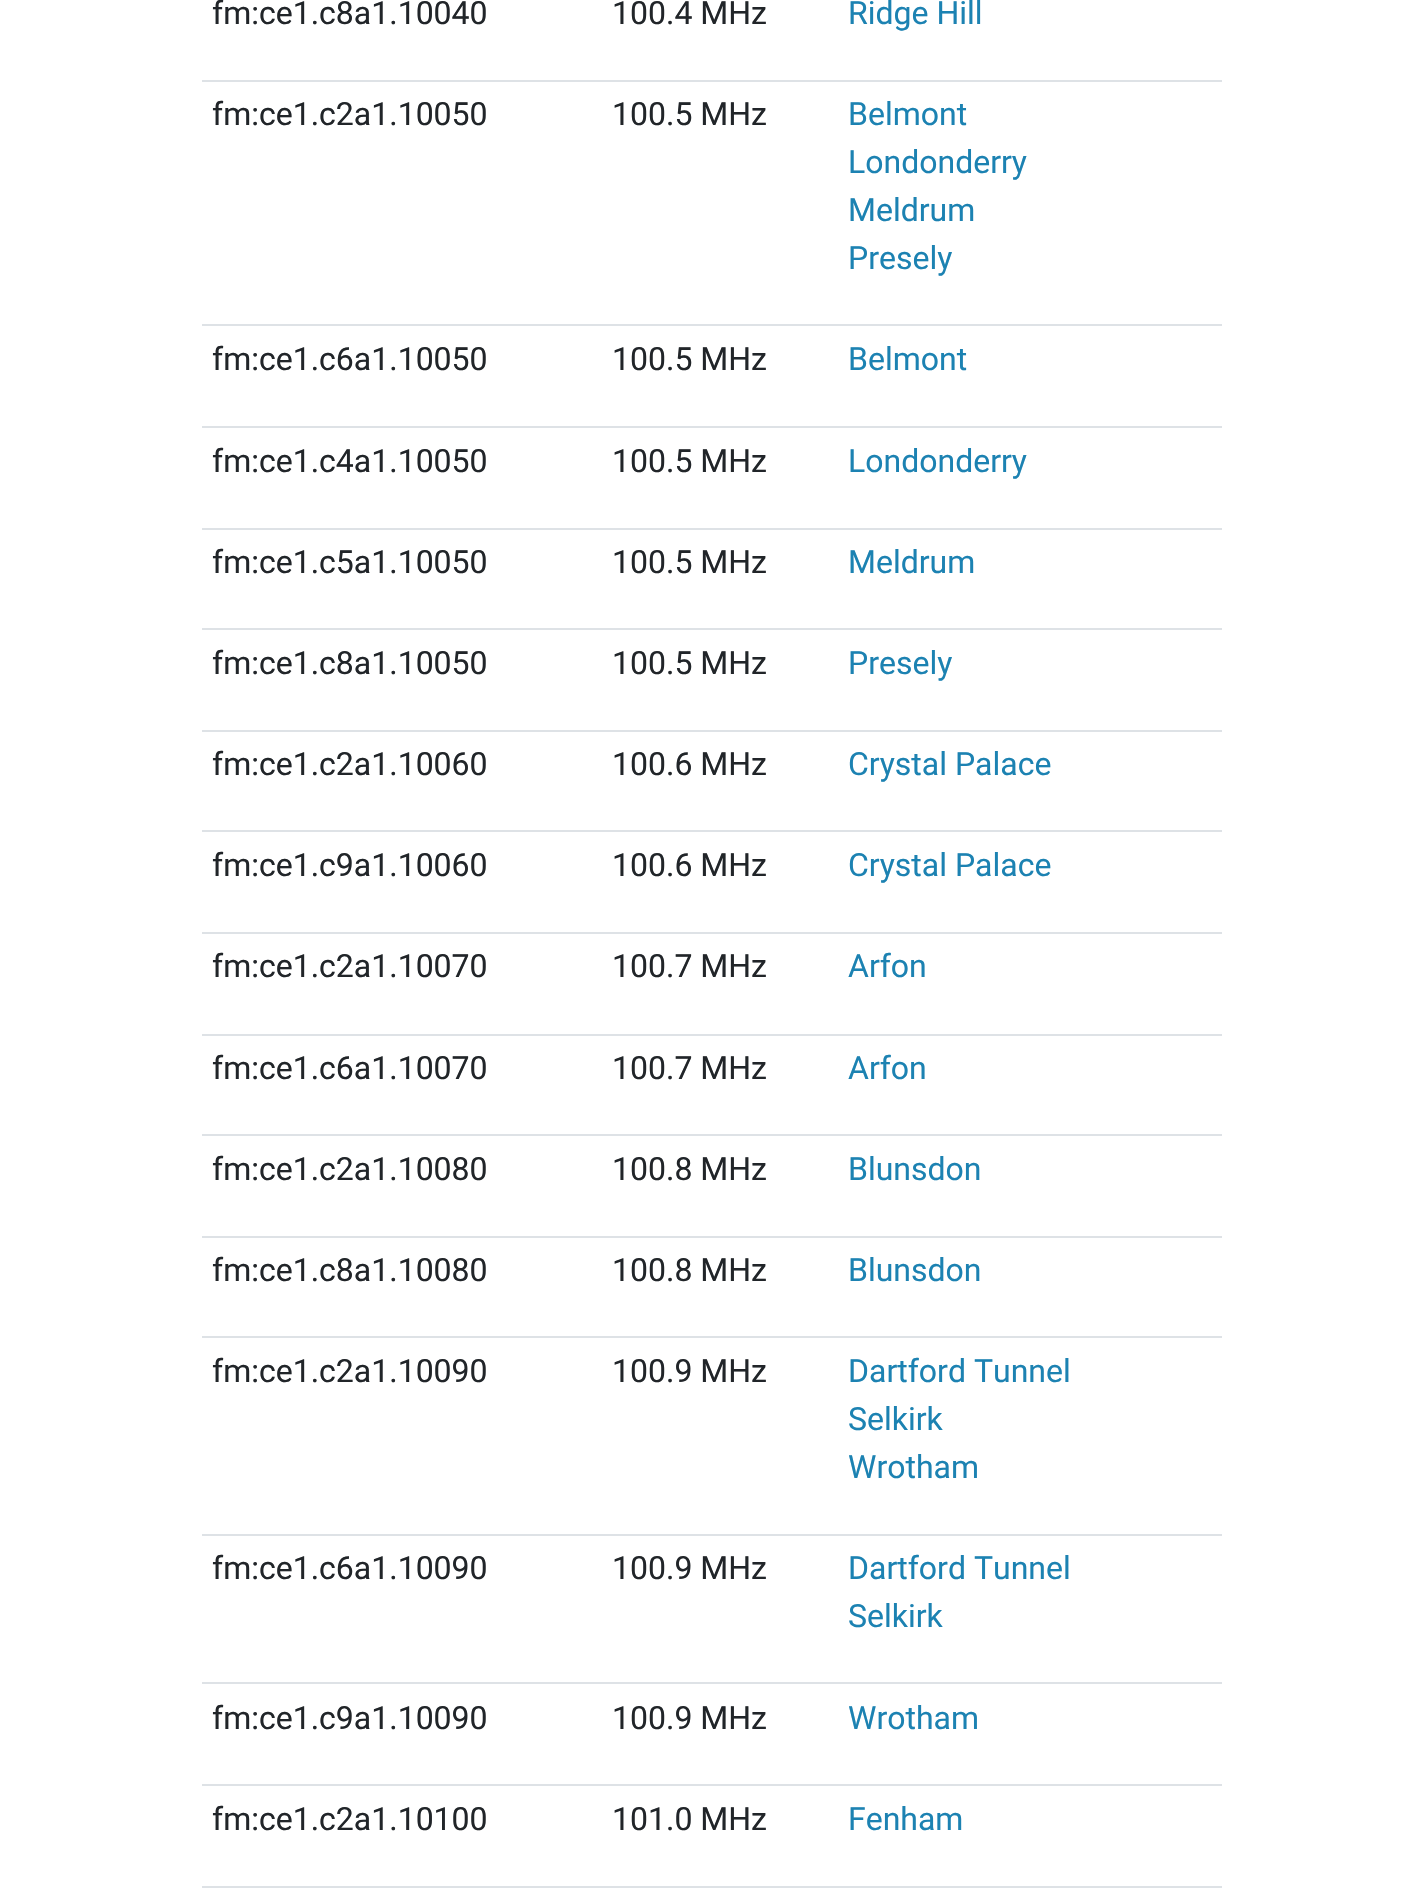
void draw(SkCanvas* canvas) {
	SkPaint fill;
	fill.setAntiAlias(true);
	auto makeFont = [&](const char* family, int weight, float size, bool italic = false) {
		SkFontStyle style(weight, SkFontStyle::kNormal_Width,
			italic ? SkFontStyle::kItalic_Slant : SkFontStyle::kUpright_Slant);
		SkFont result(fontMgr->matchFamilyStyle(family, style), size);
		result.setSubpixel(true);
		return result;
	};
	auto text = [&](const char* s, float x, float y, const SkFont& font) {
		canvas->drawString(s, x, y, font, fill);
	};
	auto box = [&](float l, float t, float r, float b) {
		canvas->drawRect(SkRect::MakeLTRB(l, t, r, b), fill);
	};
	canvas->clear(0xFFFFFFFF);
	fill.setColor(0xFFDEE2E6);
	box(202, 80, 1222, 82);
	box(202, 324, 1222, 326);
	box(202, 426, 1222, 428);
	box(202, 528, 1222, 530);
	box(202, 628, 1222, 630);
	box(202, 730, 1222, 732);
	box(202, 830, 1222, 832);
	box(202, 932, 1222, 934);
	box(202, 1034, 1222, 1036);
	box(202, 1134, 1222, 1136);
	box(202, 1236, 1222, 1238);
	box(202, 1336, 1222, 1338);
	box(202, 1534, 1222, 1536);
	box(202, 1682, 1222, 1684);
	box(202, 1784, 1222, 1786);
	box(202, 1886, 1222, 1888);
	auto font1 = makeFont("Roboto", 400, 32);
	fill.setColor(0xFF212529);
	text("fm:ce1.c8a1.10040", 212, 24, font1);
	text("100.4 MHz", 612, 24, font1);
	fill.setColor(0xFF1C82B2);
	text("Ridge Hill", 848, 24, font1);
	fill.setColor(0xFF212529);
	text("fm:ce1.c2a1.10050", 212, 125, font1);
	text("100.5 MHz", 612, 125, font1);
	fill.setColor(0xFF1C82B2);
	text("Belmont", 848, 125, font1);
	text("Londonderry", 848, 173, font1);
	text("Meldrum", 848, 221, font1);
	text("Presely", 848, 269, font1);
	fill.setColor(0xFF212529);
	text("fm:ce1.c6a1.10050", 212, 370, font1);
	text("100.5 MHz", 612, 370, font1);
	fill.setColor(0xFF1C82B2);
	text("Belmont", 848, 370, font1);
	fill.setColor(0xFF212529);
	text("fm:ce1.c4a1.10050", 212, 472, font1);
	text("100.5 MHz", 612, 472, font1);
	fill.setColor(0xFF1C82B2);
	text("Londonderry", 848, 472, font1);
	fill.setColor(0xFF212529);
	text("fm:ce1.c5a1.10050", 212, 573, font1);
	text("100.5 MHz", 612, 573, font1);
	fill.setColor(0xFF1C82B2);
	text("Meldrum", 848, 573, font1);
	fill.setColor(0xFF212529);
	text("fm:ce1.c8a1.10050", 212, 674, font1);
	text("100.5 MHz", 612, 674, font1);
	fill.setColor(0xFF1C82B2);
	text("Presely", 848, 674, font1);
	fill.setColor(0xFF212529);
	text("fm:ce1.c2a1.10060", 212, 775, font1);
	text("100.6 MHz", 612, 775, font1);
	fill.setColor(0xFF1C82B2);
	text("Crystal Palace", 848, 775, font1);
	fill.setColor(0xFF212529);
	text("fm:ce1.c9a1.10060", 212, 876, font1);
	text("100.6 MHz", 612, 876, font1);
	fill.setColor(0xFF1C82B2);
	text("Crystal Palace", 848, 876, font1);
	fill.setColor(0xFF212529);
	text("fm:ce1.c2a1.10070", 212, 977, font1);
	text("100.7 MHz", 612, 977, font1);
	fill.setColor(0xFF1C82B2);
	text("Arfon", 848, 977, font1);
	fill.setColor(0xFF212529);
	text("fm:ce1.c6a1.10070", 212, 1079, font1);
	text("100.7 MHz", 612, 1079, font1);
	fill.setColor(0xFF1C82B2);
	text("Arfon", 848, 1079, font1);
	fill.setColor(0xFF212529);
	text("fm:ce1.c2a1.10080", 212, 1180, font1);
	text("100.8 MHz", 612, 1180, font1);
	fill.setColor(0xFF1C82B2);
	text("Blunsdon", 848, 1180, font1);
	fill.setColor(0xFF212529);
	text("fm:ce1.c8a1.10080", 212, 1281, font1);
	text("100.8 MHz", 612, 1281, font1);
	fill.setColor(0xFF1C82B2);
	text("Blunsdon", 848, 1281, font1);
	fill.setColor(0xFF212529);
	text("fm:ce1.c2a1.10090", 212, 1382, font1);
	text("100.9 MHz", 612, 1382, font1);
	fill.setColor(0xFF1C82B2);
	text("Dartford Tunnel", 848, 1382, font1);
	text("Selkirk", 848, 1430, font1);
	text("Wrotham", 848, 1478, font1);
	fill.setColor(0xFF212529);
	text("fm:ce1.c6a1.10090", 212, 1579, font1);
	text("100.9 MHz", 612, 1579, font1);
	fill.setColor(0xFF1C82B2);
	text("Dartford Tunnel", 848, 1579, font1);
	text("Selkirk", 848, 1627, font1);
	fill.setColor(0xFF212529);
	text("fm:ce1.c9a1.10090", 212, 1729, font1);
	text("100.9 MHz", 612, 1729, font1);
	fill.setColor(0xFF1C82B2);
	text("Wrotham", 848, 1729, font1);
	fill.setColor(0xFF212529);
	text("fm:ce1.c2a1.10100", 212, 1830, font1);
	text("101.0 MHz", 612, 1830, font1);
	fill.setColor(0xFF1C82B2);
	text("Fenham", 848, 1830, font1);
}
